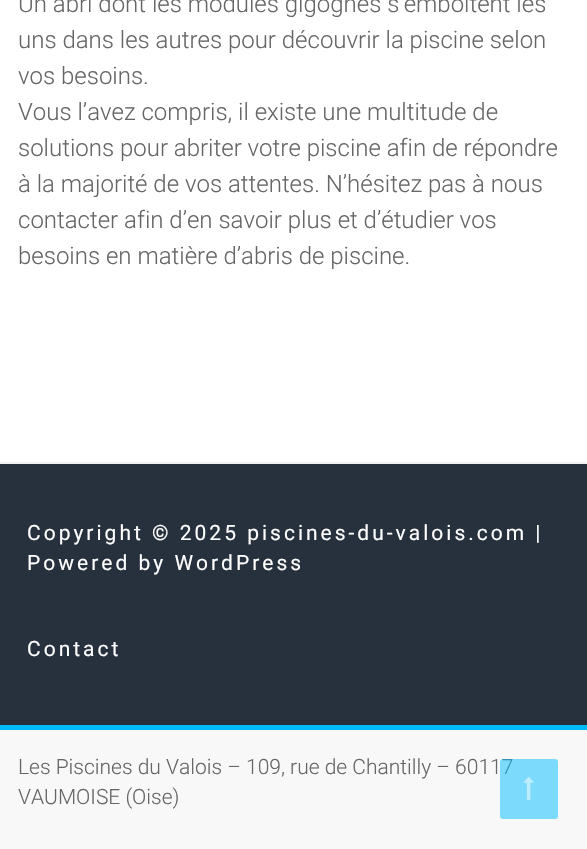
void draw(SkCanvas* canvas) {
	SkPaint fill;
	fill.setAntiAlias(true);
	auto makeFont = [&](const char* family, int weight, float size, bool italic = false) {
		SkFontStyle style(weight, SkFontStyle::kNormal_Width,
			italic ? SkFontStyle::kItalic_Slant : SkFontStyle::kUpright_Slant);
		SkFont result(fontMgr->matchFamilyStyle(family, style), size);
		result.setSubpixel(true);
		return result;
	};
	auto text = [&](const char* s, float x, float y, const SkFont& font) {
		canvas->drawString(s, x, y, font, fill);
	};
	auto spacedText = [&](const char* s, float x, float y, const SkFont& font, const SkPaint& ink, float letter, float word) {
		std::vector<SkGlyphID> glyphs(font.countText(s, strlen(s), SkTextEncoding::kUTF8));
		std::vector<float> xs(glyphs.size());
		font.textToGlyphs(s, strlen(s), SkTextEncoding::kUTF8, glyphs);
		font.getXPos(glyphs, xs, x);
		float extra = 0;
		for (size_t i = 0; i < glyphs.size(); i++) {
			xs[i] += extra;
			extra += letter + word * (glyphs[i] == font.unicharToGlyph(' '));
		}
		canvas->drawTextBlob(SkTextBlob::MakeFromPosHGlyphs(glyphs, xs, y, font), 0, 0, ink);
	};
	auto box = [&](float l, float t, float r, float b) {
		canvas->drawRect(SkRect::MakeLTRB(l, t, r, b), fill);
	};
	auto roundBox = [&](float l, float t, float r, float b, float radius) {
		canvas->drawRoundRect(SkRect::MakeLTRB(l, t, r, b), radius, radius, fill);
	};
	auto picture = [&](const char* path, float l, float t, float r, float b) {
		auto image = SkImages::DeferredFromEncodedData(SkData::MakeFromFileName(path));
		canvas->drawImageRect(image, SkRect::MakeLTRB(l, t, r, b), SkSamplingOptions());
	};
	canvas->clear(0xFFFFFFFF);
	fill.setColor(0xFF27313D);
	box(0, 464, 587, 725);
	fill.setColor(0xFFF2F2F2);
	box(0, 462, 587, 464);
	fill.setColor(0xFFF8F8F8);
	box(0, 730, 587, 849);
	fill.setColor(0xFF00BCFF);
	box(0, 725, 587, 730);
	auto font1 = makeFont("Roboto", 300, 24);
	fill.setColor(0xFF666666);
	text("Un abri dont les modules gigognes s’emboîtent les", 18, 12, font1);
	text("uns dans les autres pour découvrir la piscine selon", 18, 48, font1);
	text("vos besoins.", 18, 84, font1);
	text("Vous l’avez compris, il existe une multitude de", 18, 120, font1);
	text("solutions pour abriter votre piscine afin de répondre", 18, 156, font1);
	text("à la majorité de vos attentes. N’hésitez pas à nous", 18, 192, font1);
	text("contacter afin d’en savoir plus et d’étudier vos", 18, 228, font1);
	text("besoins en matière d’abris de piscine.", 18, 264, font1);
	auto font2 = makeFont("Roboto", 400, 21);
	fill.setColor(0xFFFFFFFF);
	spacedText("Copyright © 2025 piscines-du-valois.com |", 27, 540, font2, fill, 3, 0);
	spacedText("Powered by WordPress", 27, 570, font2, fill, 3, 0);
	spacedText("Contact", 27, 656, font2, fill, 3, 0);
	auto font3 = makeFont("Roboto", 300, 21);
	fill.setColor(0xFF666666);
	text("Les Piscines du Valois – 109, rue de Chantilly – 60117", 18, 774, font3);
	text("VAUMOISE (Oise)", 18, 804, font3);
	fill.setColor(0x8000BCFF);
	roundBox(500, 759, 558, 819, 3);
	picture("image0.png", 523, 776, 534, 800);
}
